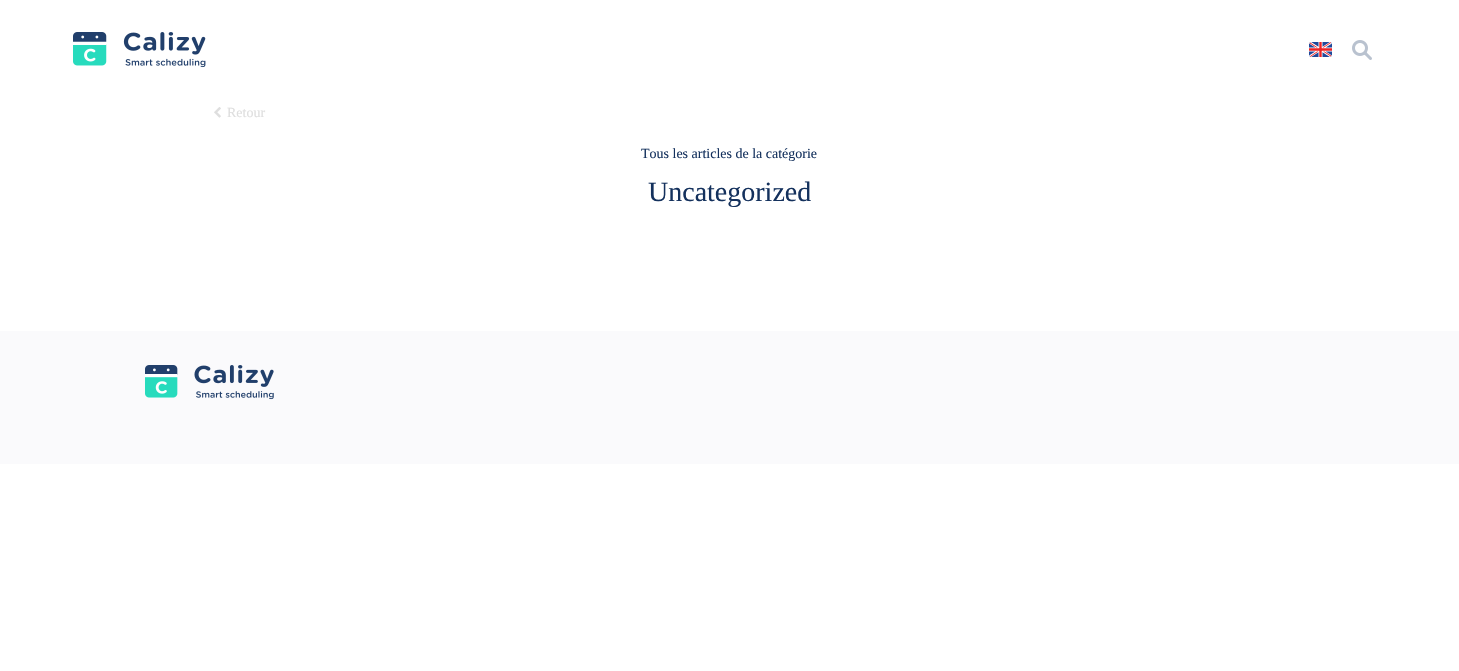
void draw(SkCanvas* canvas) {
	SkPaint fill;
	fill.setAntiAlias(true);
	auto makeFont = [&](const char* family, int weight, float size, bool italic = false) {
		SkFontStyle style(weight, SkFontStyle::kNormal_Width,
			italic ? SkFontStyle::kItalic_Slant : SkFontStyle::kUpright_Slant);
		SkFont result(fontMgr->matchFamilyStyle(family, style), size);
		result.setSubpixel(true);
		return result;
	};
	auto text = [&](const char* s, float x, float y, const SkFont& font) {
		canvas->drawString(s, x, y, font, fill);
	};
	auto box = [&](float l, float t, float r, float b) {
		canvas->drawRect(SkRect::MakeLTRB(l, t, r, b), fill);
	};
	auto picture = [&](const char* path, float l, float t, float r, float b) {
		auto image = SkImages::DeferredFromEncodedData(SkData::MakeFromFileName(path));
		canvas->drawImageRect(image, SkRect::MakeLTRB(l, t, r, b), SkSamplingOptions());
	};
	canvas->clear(0xFFFFFFFF);
	picture("image0.png", 73, 32, 206, 68);
	picture("image1.png", 1309, 42, 1332, 57);
	picture("image2.png", 1352, 40, 1372, 60);
	picture("image3.png", 214, 107, 221, 118);
	fill.setColor(0xFFFAFAFC);
	box(0, 331, 1459, 464);
	picture("image4.png", 145, 365, 274, 400);
	auto font1 = makeFont("Liberation Serif", 400, 14);
	fill.setColor(0xFFDEDEDE);
	text("Retour", 227, 117, font1);
	fill.setColor(0xFF14315D);
	text("Tous les articles de la catégorie", 641, 158, font1);
	auto font2 = makeFont("Liberation Serif", 400, 28);
	text("Uncategorized", 648, 201, font2);
}
